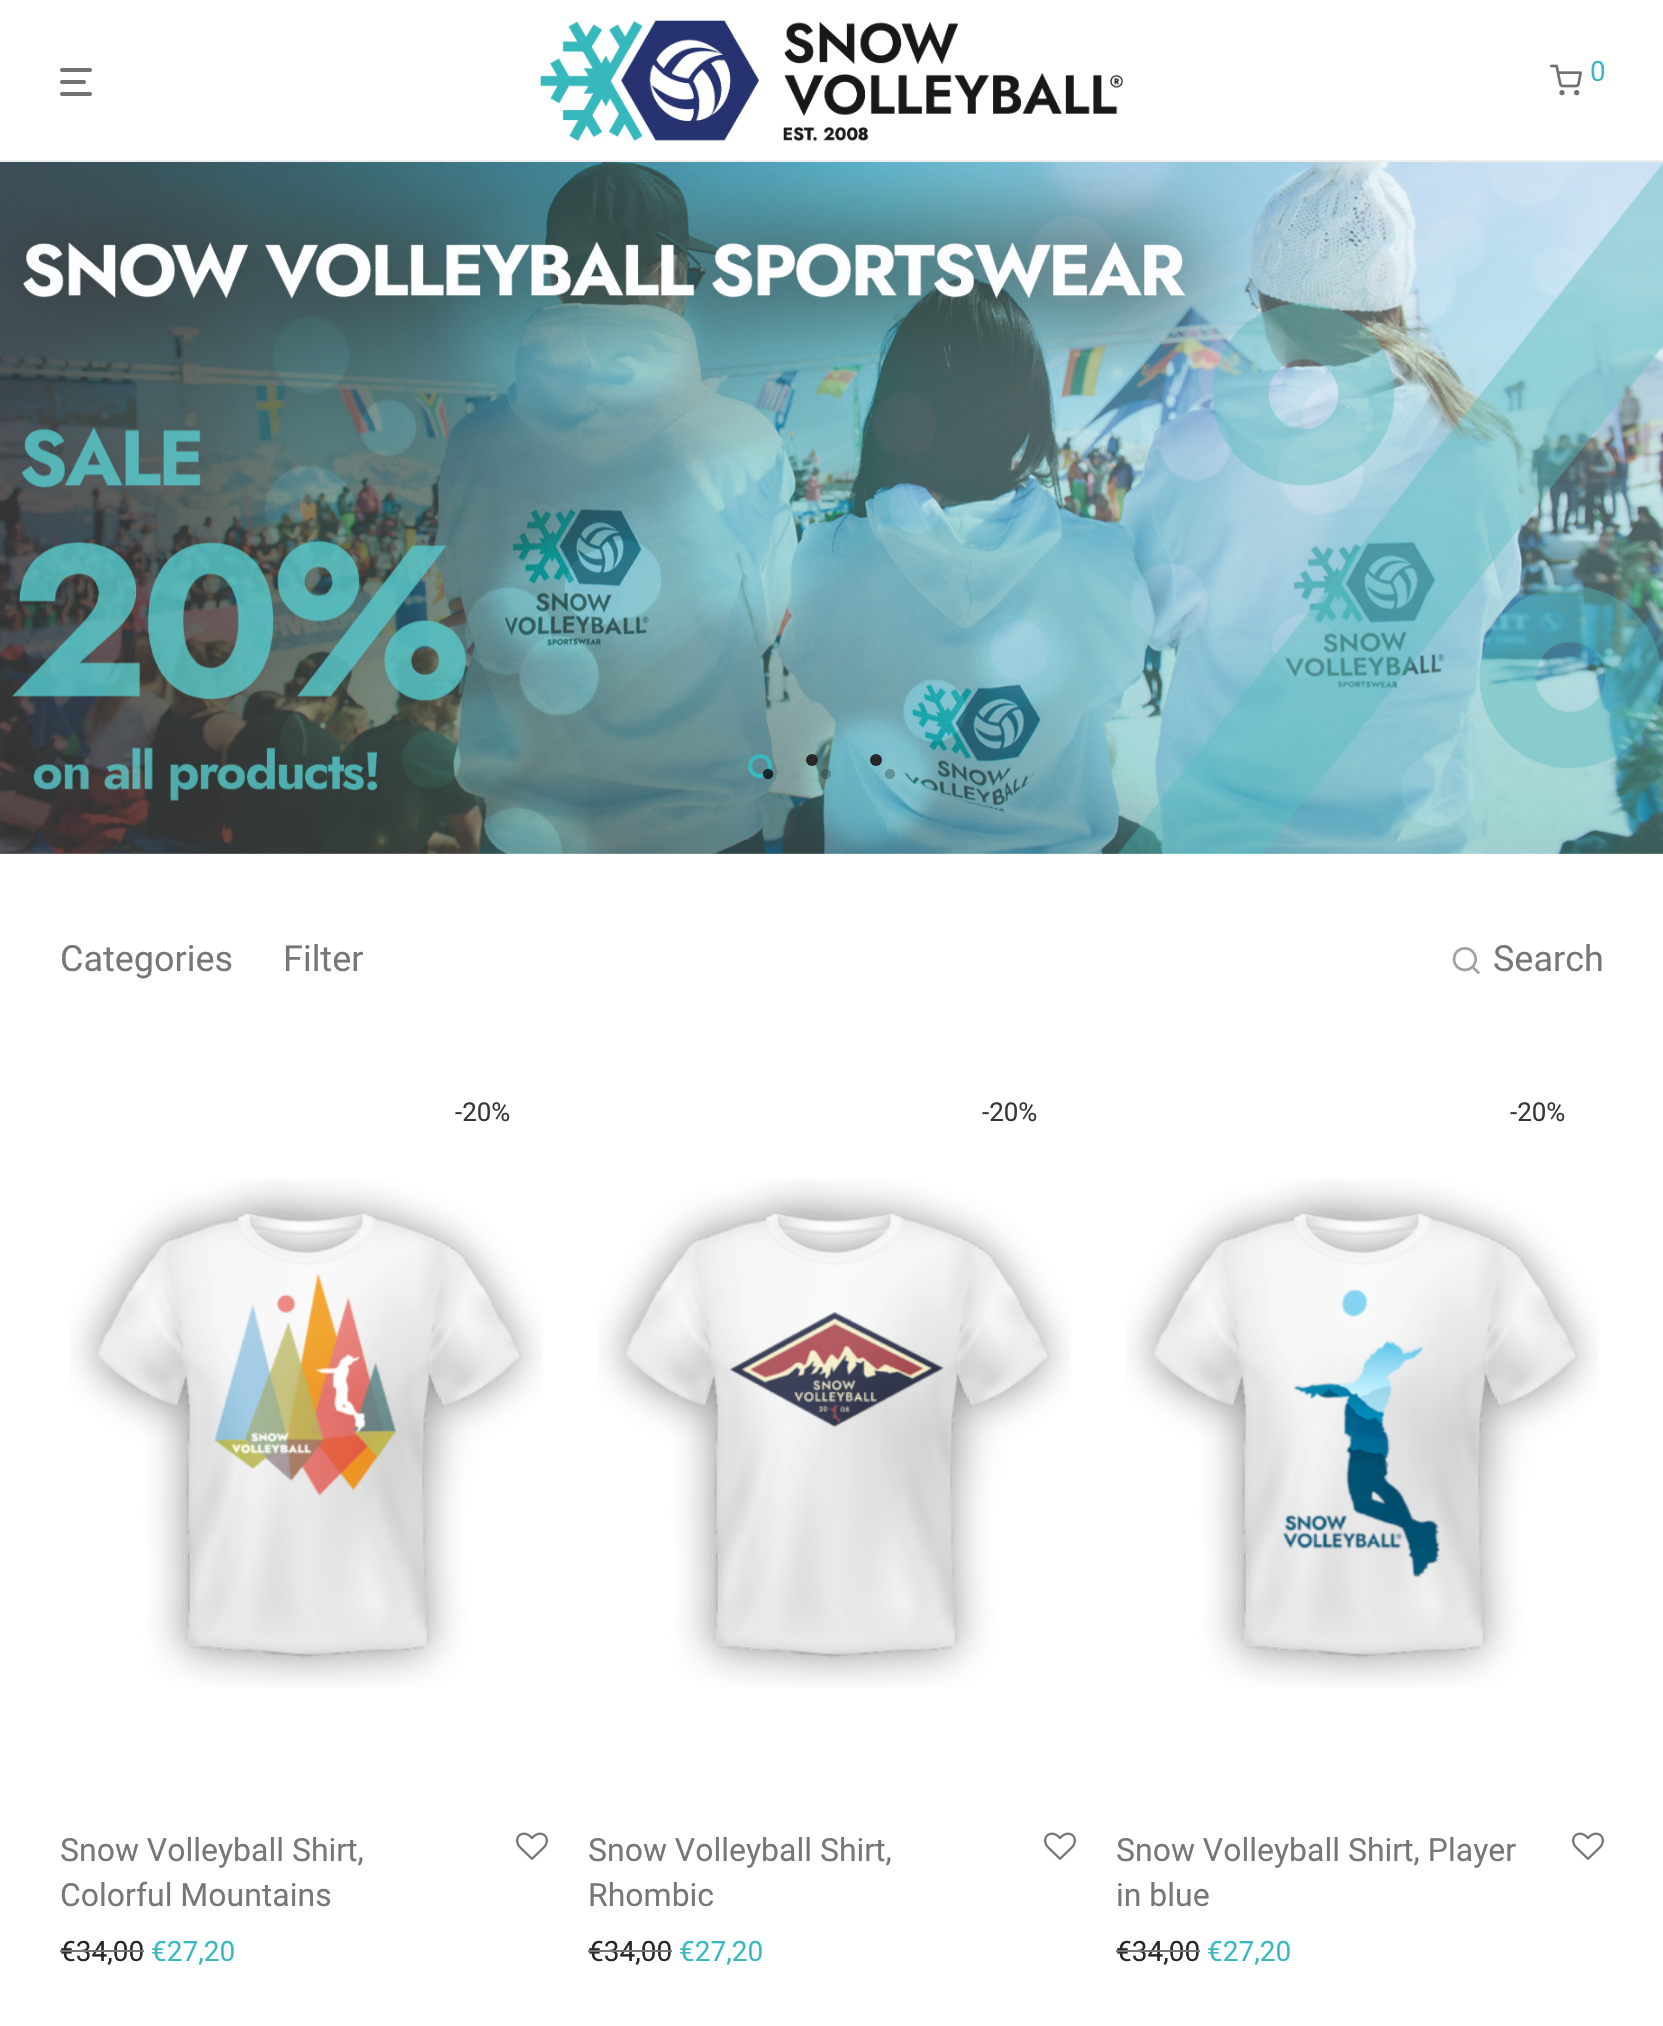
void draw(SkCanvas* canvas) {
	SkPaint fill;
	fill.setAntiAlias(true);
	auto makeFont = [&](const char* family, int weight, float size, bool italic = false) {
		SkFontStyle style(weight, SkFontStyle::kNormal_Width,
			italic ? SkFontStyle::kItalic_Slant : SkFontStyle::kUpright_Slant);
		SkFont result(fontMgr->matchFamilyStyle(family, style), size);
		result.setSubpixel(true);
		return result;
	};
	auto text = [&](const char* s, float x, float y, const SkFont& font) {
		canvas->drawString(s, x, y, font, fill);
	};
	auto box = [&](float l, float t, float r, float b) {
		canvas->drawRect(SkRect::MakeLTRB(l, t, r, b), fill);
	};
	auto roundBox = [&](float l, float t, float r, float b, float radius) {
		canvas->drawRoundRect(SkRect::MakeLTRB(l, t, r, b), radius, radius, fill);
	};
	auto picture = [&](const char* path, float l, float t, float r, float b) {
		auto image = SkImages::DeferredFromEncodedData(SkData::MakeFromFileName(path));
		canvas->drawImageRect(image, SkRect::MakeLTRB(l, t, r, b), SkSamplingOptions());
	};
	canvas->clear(0xFFFFFFFF);
	fill.setColor(0xFFEEEEEE);
	box(0, 160, 1663, 162);
	fill.setColor(0xFF707070);
	roundBox(60, 68, 92, 72, 2);
	roundBox(60, 80, 86, 84, 2);
	roundBox(60, 92, 92, 96, 2);
	picture("image0.png", 540, 20, 1123, 141);
	picture("image1.png", 1550, 64, 1582, 96);
	picture("image2.png", 0, 162, 1663, 854);
	fill.setStyle(SkPaint::kStroke_Style);
	fill.setStrokeWidth(4);
	fill.setColor(0xFF39B9C1);
	canvas->drawCircle(760, 766, 10, fill);
	picture("image3.png", 762, 768, 774, 780);
	fill.setStyle(SkPaint::kFill_Style);
	fill.setColor(0xFF282828);
	canvas->drawCircle(812, 760, 6, fill);
	picture("image4.png", 821, 769, 831, 779);
	canvas->drawCircle(876, 760, 6, fill);
	picture("image5.png", 885, 769, 895, 779);
	picture("image6.png", 1452, 947, 1480, 974);
	picture("image7.png", 70, 1179, 543, 1688);
	picture("image8.png", 516, 1832, 548, 1860);
	picture("image9.png", 598, 1179, 1071, 1688);
	picture("image8.png", 1044, 1832, 1076, 1860);
	picture("image10.png", 1126, 1179, 1599, 1688);
	picture("image8.png", 1572, 1832, 1604, 1860);
	auto font1 = makeFont("Roboto", 400, 28);
	fill.setColor(0xFF39B9C1);
	text("0", 1590, 81, font1);
	auto font2 = makeFont("Roboto", 400, 36);
	fill.setColor(0xFF777777);
	text("Categories", 60, 971, font2);
	text("Filter", 283, 971, font2);
	text("Search", 1493, 971, font2);
	auto font3 = makeFont("Roboto", 400, 26);
	fill.setColor(0xFF373737);
	text("-20%", 455, 1121, font3);
	auto font4 = makeFont("Roboto", 400, 32);
	fill.setColor(0xFF777777);
	text("Snow Volleyball Shirt,", 60, 1861, font4);
	text("Colorful Mountains", 60, 1906, font4);
	fill.setColor(0xFF282828);
	text("€34,00", 60, 1961, font1);
	fill.setColor(0xFF777777);
	box(60, 1950, 144, 1952);
	fill.setColor(0xFF39B9C1);
	text("€27,20", 151, 1961, font1);
	fill.setColor(0xFF373737);
	text("-20%", 982, 1121, font3);
	fill.setColor(0xFF777777);
	text("Snow Volleyball Shirt,", 588, 1861, font4);
	text("Rhombic", 588, 1906, font4);
	fill.setColor(0xFF282828);
	text("€34,00", 588, 1961, font1);
	fill.setColor(0xFF777777);
	box(588, 1950, 672, 1952);
	fill.setColor(0xFF39B9C1);
	text("€27,20", 679, 1961, font1);
	fill.setColor(0xFF373737);
	text("-20%", 1510, 1121, font3);
	fill.setColor(0xFF777777);
	text("Snow Volleyball Shirt, Player", 1116, 1861, font4);
	text("in blue", 1116, 1906, font4);
	fill.setColor(0xFF282828);
	text("€34,00", 1116, 1961, font1);
	fill.setColor(0xFF777777);
	box(1116, 1950, 1200, 1952);
	fill.setColor(0xFF39B9C1);
	text("€27,20", 1207, 1961, font1);
}
